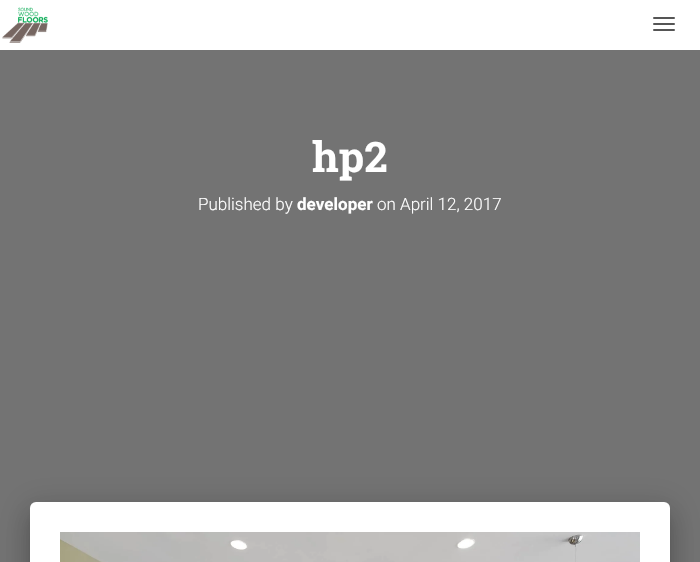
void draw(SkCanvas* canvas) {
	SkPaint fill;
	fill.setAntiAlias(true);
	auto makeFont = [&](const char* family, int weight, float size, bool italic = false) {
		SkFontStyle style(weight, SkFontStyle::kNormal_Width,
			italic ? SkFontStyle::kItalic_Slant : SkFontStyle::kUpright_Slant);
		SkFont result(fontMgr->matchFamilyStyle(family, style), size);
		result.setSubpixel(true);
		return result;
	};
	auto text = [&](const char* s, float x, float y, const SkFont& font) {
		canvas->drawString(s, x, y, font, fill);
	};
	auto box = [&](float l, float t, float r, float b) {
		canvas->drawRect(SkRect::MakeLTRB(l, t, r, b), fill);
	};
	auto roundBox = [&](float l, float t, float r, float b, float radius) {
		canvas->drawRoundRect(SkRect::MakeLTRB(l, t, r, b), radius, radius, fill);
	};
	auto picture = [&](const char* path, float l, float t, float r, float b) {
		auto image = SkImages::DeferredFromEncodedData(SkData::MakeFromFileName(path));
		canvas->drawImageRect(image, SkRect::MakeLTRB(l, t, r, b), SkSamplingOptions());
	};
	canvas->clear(0xFF737373);
	fill.setColor(0xFFFFFFFF);
	box(0, 0, 700, 50);
	picture("image0.png", 2, 7, 48, 43);
	fill.setColor(0xFF555555);
	roundBox(653, 17, 675, 19, 1);
	roundBox(653, 23, 675, 25, 1);
	roundBox(653, 29, 675, 31, 1);
	fill.setColor(0x33000000);
	fill.setMaskFilter(SkMaskFilter::MakeBlur(kNormal_SkBlurStyle, 5));
	canvas->drawRoundRect(SkRect::MakeLTRB(35, 515, 665, 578), 1, 1, fill);
	fill.setMaskFilter(nullptr);
	fill.setColor(0x1F000000);
	fill.setMaskFilter(SkMaskFilter::MakeBlur(kNormal_SkBlurStyle, 15));
	canvas->drawRoundRect(SkRect::MakeLTRB(25, 503, 675, 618), 11, 11, fill);
	fill.setMaskFilter(nullptr);
	fill.setColor(0x24000000);
	fill.setMaskFilter(SkMaskFilter::MakeBlur(kNormal_SkBlurStyle, 12));
	canvas->drawRoundRect(SkRect::MakeLTRB(28, 516, 672, 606), 8, 8, fill);
	fill.setMaskFilter(nullptr);
	fill.setColor(0xFFFFFFFF);
	roundBox(30, 502, 670, 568, 6);
	picture("image1.png", 60, 532, 640, 562);
	auto font1 = makeFont("Roboto Slab", 700, 42);
	text("hp2", 312, 172, font1);
	auto font2 = makeFont("Roboto", 300, 17);
	text("Published by", 198, 210, font2);
	auto font3 = makeFont("Roboto", 700, 17);
	text("developer", 297, 210, font3);
	text("on April 12, 2017", 377, 210, font2);
}
